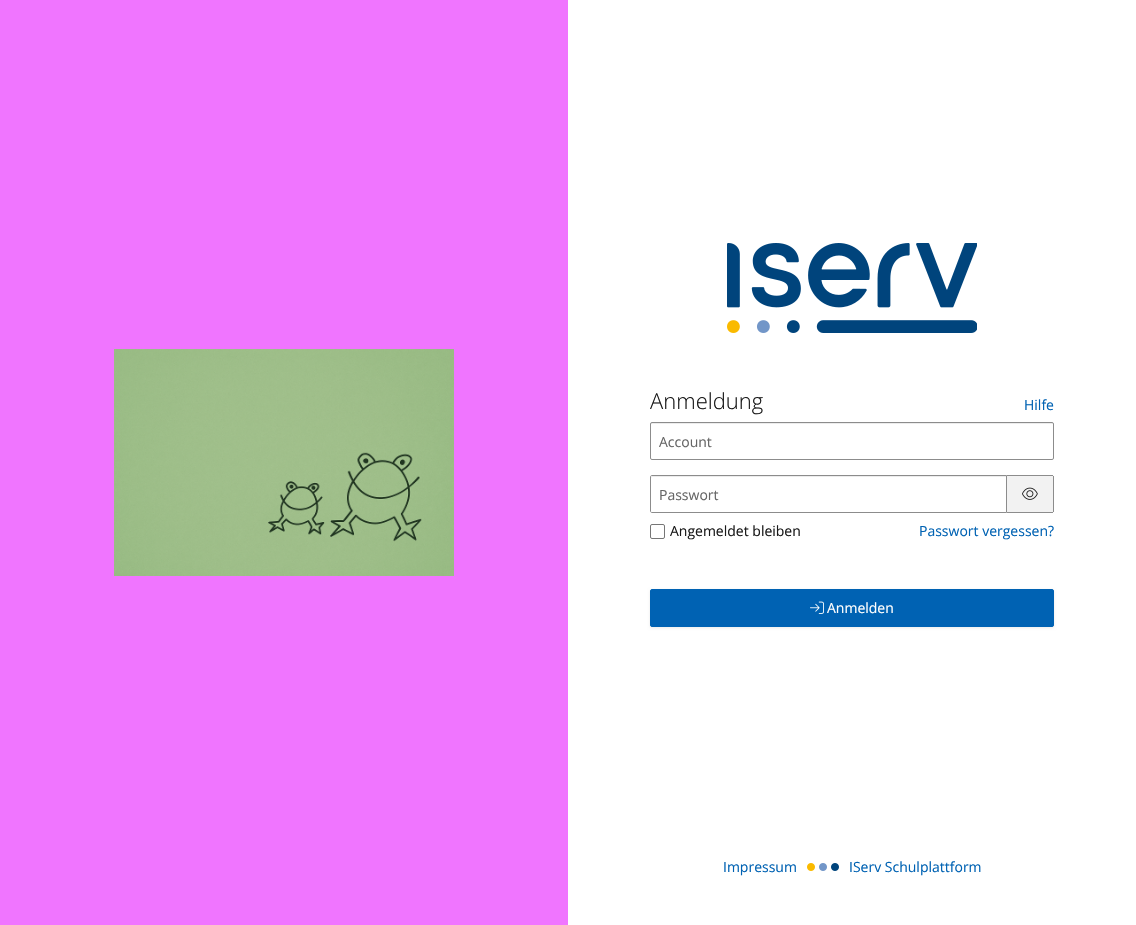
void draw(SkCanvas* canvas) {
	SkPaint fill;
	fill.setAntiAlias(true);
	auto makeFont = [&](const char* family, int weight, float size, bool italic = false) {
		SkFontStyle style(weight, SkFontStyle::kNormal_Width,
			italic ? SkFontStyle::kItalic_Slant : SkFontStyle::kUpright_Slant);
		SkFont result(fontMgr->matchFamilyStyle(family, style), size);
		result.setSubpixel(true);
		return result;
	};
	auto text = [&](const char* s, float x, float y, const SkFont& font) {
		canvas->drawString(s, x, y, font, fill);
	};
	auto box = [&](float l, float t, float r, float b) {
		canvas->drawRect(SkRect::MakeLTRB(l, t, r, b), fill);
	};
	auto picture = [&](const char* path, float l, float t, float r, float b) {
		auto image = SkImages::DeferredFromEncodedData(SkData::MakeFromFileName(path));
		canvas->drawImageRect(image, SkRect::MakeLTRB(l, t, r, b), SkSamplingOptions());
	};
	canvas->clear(0xFFFFFFFF);
	fill.setColor(0xFFF075FF);
	box(0, 0, 568, 925);
	picture("image0.png", 114, 349, 454, 576);
	picture("image1.png", 727, 243, 977, 333);
	fill.setColor(0xFFECECEC);
	canvas->drawPath(SkPathBuilder().moveTo(652, 424).lineTo(1052, 424).lineTo(1053, 424).lineTo(1053, 425).lineTo(1053, 424).lineTo(1052, 423).lineTo(651, 423).lineTo(651, 425).cubicTo(651, 424, 651, 424, 652, 424).close().detach(), fill);
	fill.setStyle(SkPaint::kStroke_Style);
	fill.setStrokeWidth(1);
	fill.setColor(0xFF8C8C8C);
	canvas->drawRoundRect(SkRect::MakeLTRB(650.5f, 422.5f, 1053.5f, 459.5f), 1.5f, 1.5f, fill);
	fill.setStyle(SkPaint::kFill_Style);
	fill.setColor(0xFFECECEC);
	canvas->drawPath(SkPathBuilder().moveTo(652, 477).lineTo(1006, 477).lineTo(1006, 476).lineTo(652, 476).lineTo(651, 477).lineTo(651, 478).close().detach(), fill);
	fill.setStyle(SkPaint::kStroke_Style);
	fill.setColor(0xFF8C8C8C);
	canvas->drawPath(SkPathBuilder().moveTo(652, 475.5f).lineTo(1006.5f, 475.5f).lineTo(1006.5f, 512.5f).lineTo(652, 512.5f).cubicTo(651, 512.5f, 650.5f, 512, 650.5f, 511).lineTo(650.5f, 477).cubicTo(650.5f, 476, 651, 475.5f, 652, 475.5f).close().detach(), fill);
	fill.setStyle(SkPaint::kFill_Style);
	fill.setColor(0xFFF2F2F2);
	canvas->drawPath(SkPathBuilder().moveTo(1007, 475).lineTo(1052, 475).cubicTo(1053, 475, 1054, 476, 1054, 477).lineTo(1054, 511).cubicTo(1054, 512, 1053, 513, 1052, 513).lineTo(1007, 513).close().detach(), fill);
	fill.setColor(0xFF8C8C8C);
	box(1007, 475, 1053, 476);
	box(1053, 476, 1054, 512);
	box(1007, 512, 1053, 513);
	picture("image2.png", 1022, 487, 1038, 500);
	fill.setStyle(SkPaint::kStroke_Style);
	fill.setColor(0xFF767676);
	canvas->drawRoundRect(SkRect::MakeLTRB(650.5f, 524.5f, 664.5f, 538.5f), 1.5f, 1.5f, fill);
	fill.setStyle(SkPaint::kFill_Style);
	fill.setColor(0x14000000);
	fill.setMaskFilter(SkMaskFilter::MakeBlur(kNormal_SkBlurStyle, 1.5f));
	canvas->drawRoundRect(SkRect::MakeLTRB(650, 590, 1054, 628), 2, 2, fill);
	fill.setMaskFilter(nullptr);
	fill.setColor(0xFF0062B3);
	canvas->drawRoundRect(SkRect::MakeLTRB(650.5f, 589.5f, 1053.5f, 626.5f), 1.5f, 1.5f, fill);
	fill.setStyle(SkPaint::kStroke_Style);
	canvas->drawRoundRect(SkRect::MakeLTRB(650.5f, 589.5f, 1053.5f, 626.5f), 1.5f, 1.5f, fill);
	picture("image3.png", 810, 601, 824, 614);
	picture("image4.png", 807, 863, 815, 871);
	picture("image5.png", 819, 863, 827, 871);
	picture("image6.png", 831, 863, 839, 871);
	auto font1 = makeFont("Open Sans", 300, 22);
	fill.setStyle(SkPaint::kFill_Style);
	fill.setColor(0xFF1A1A1A);
	text("Anmeldung", 650, 409, font1);
	auto font2 = makeFont("Open Sans", 400, 14);
	fill.setColor(0xFF0062B3);
	text("Hilfe", 1024, 410, font2);
	fill.setColor(0xFF666666);
	text("Account", 659, 447, font2);
	text("Passwort", 659, 500, font2);
	fill.setColor(0xFF1A1A1A);
	text("Angemeldet bleiben", 670, 536, font2);
	fill.setColor(0xFF0062B3);
	text("Passwort vergessen?", 919, 536, font2);
	fill.setColor(0xFFFFFFFF);
	text("Anmelden", 827, 613, font2);
	fill.setColor(0xFF0062B3);
	text("Impressum", 723, 872, font2);
	text("IServ Schulplattform", 849, 872, font2);
}
